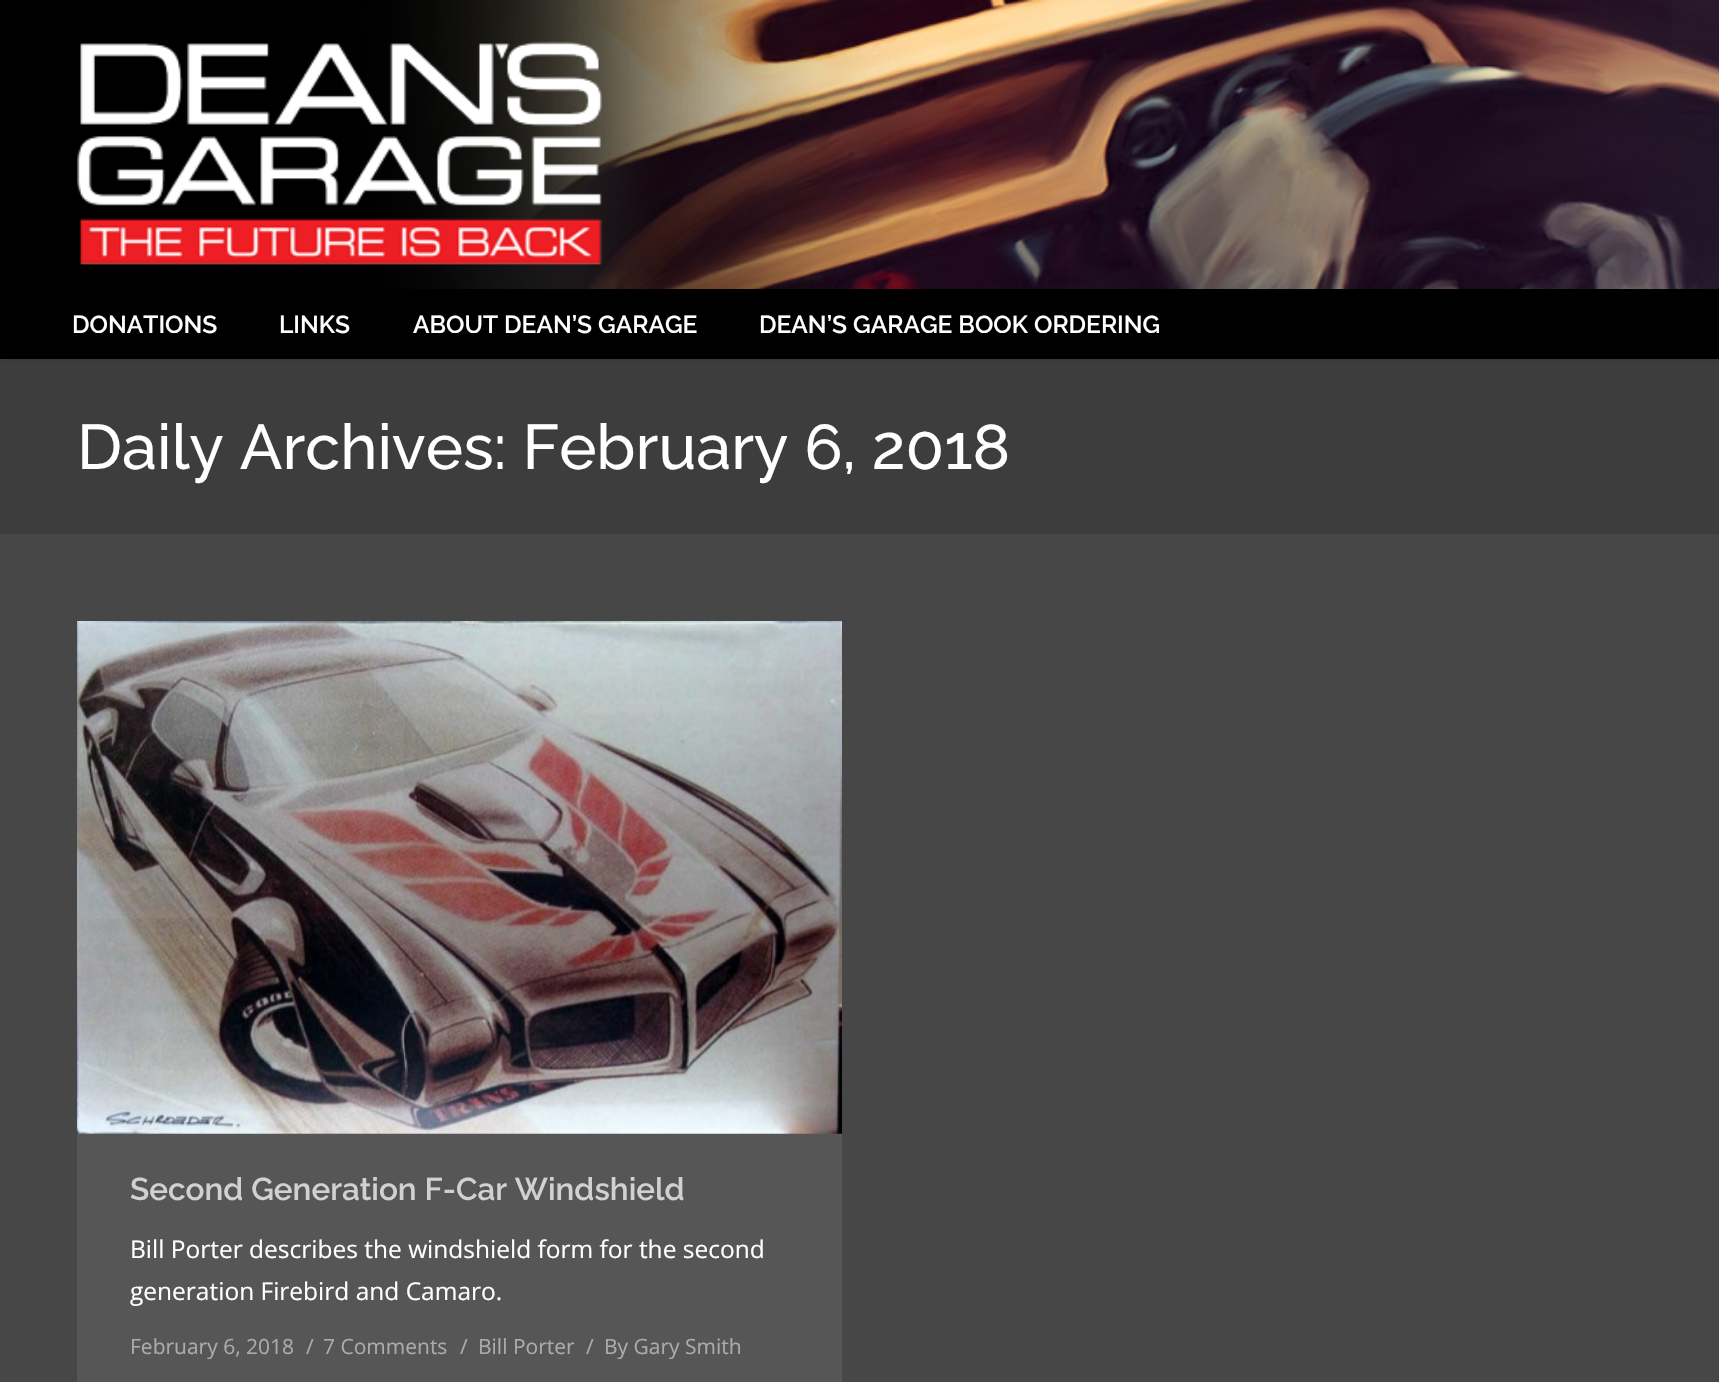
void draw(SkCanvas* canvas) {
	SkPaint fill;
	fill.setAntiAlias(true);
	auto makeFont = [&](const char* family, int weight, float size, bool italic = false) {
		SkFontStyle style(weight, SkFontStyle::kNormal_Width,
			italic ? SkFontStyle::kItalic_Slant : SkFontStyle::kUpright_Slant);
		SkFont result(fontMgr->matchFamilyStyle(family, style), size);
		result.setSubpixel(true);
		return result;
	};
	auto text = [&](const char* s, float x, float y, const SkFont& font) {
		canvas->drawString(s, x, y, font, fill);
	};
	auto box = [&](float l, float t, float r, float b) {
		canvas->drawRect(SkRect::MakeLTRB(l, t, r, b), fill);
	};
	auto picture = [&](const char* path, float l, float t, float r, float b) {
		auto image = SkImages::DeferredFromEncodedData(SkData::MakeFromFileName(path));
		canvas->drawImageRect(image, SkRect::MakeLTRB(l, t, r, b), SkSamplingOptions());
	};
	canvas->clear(0xFF474747);
	fill.setColor(0xFF3D3D3D);
	box(0, 359, 1719, 534);
	fill.setColor(0x26000000);
	fill.setMaskFilter(SkMaskFilter::MakeBlur(kNormal_SkBlurStyle, 3.5f));
	canvas->drawRect(SkRect::MakeLTRB(0, 0, 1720, 359), fill);
	fill.setMaskFilter(nullptr);
	picture("image0.png", 0, 0, 1719, 289);
	picture("image1.png", 77, 41, 602, 265);
	fill.setColor(0xFF000000);
	box(0, 289, 1719, 359);
	fill.setColor(0xFF565656);
	box(77, 1133, 842, 1382);
	picture("image2.png", 77, 621, 842, 1134);
	auto font1 = makeFont("Raleway", 600, 24.5f);
	fill.setColor(0xFFFFFFFF);
	text("DONATIONS", 72, 333, font1);
	text("LINKS", 279, 333, font1);
	text("ABOUT DEAN’S GARAGE", 413, 333, font1);
	text("DEAN’S GARAGE BOOK ORDERING", 759, 333, font1);
	auto font2 = makeFont("Raleway", 500, 63);
	text("Daily Archives: February 6, 2018", 77, 469, font2);
	auto font3 = makeFont("Raleway", 600, 31.5f);
	fill.setColor(0xFFD1D1D1);
	text("Second Generation F-Car Windshield", 130, 1200, font3);
	auto font4 = makeFont("Open Sans", 400, 24.5f);
	fill.setColor(0xFFFFFFFF);
	text("Bill Porter describes the windshield form for the second", 130, 1258, font4);
	text("generation Firebird and Camaro.", 130, 1300, font4);
	auto font5 = makeFont("Open Sans", 400, 21);
	fill.setColor(0xFFABABAB);
	text("February 6, 2018", 130, 1354, font5);
	text("/", 306, 1354, font5);
	text("7 Comments", 323, 1354, font5);
	text("/", 460, 1354, font5);
	text("Bill Porter", 478, 1354, font5);
	text("/", 586, 1354, font5);
	text("By Gary Smith", 604, 1354, font5);
}
